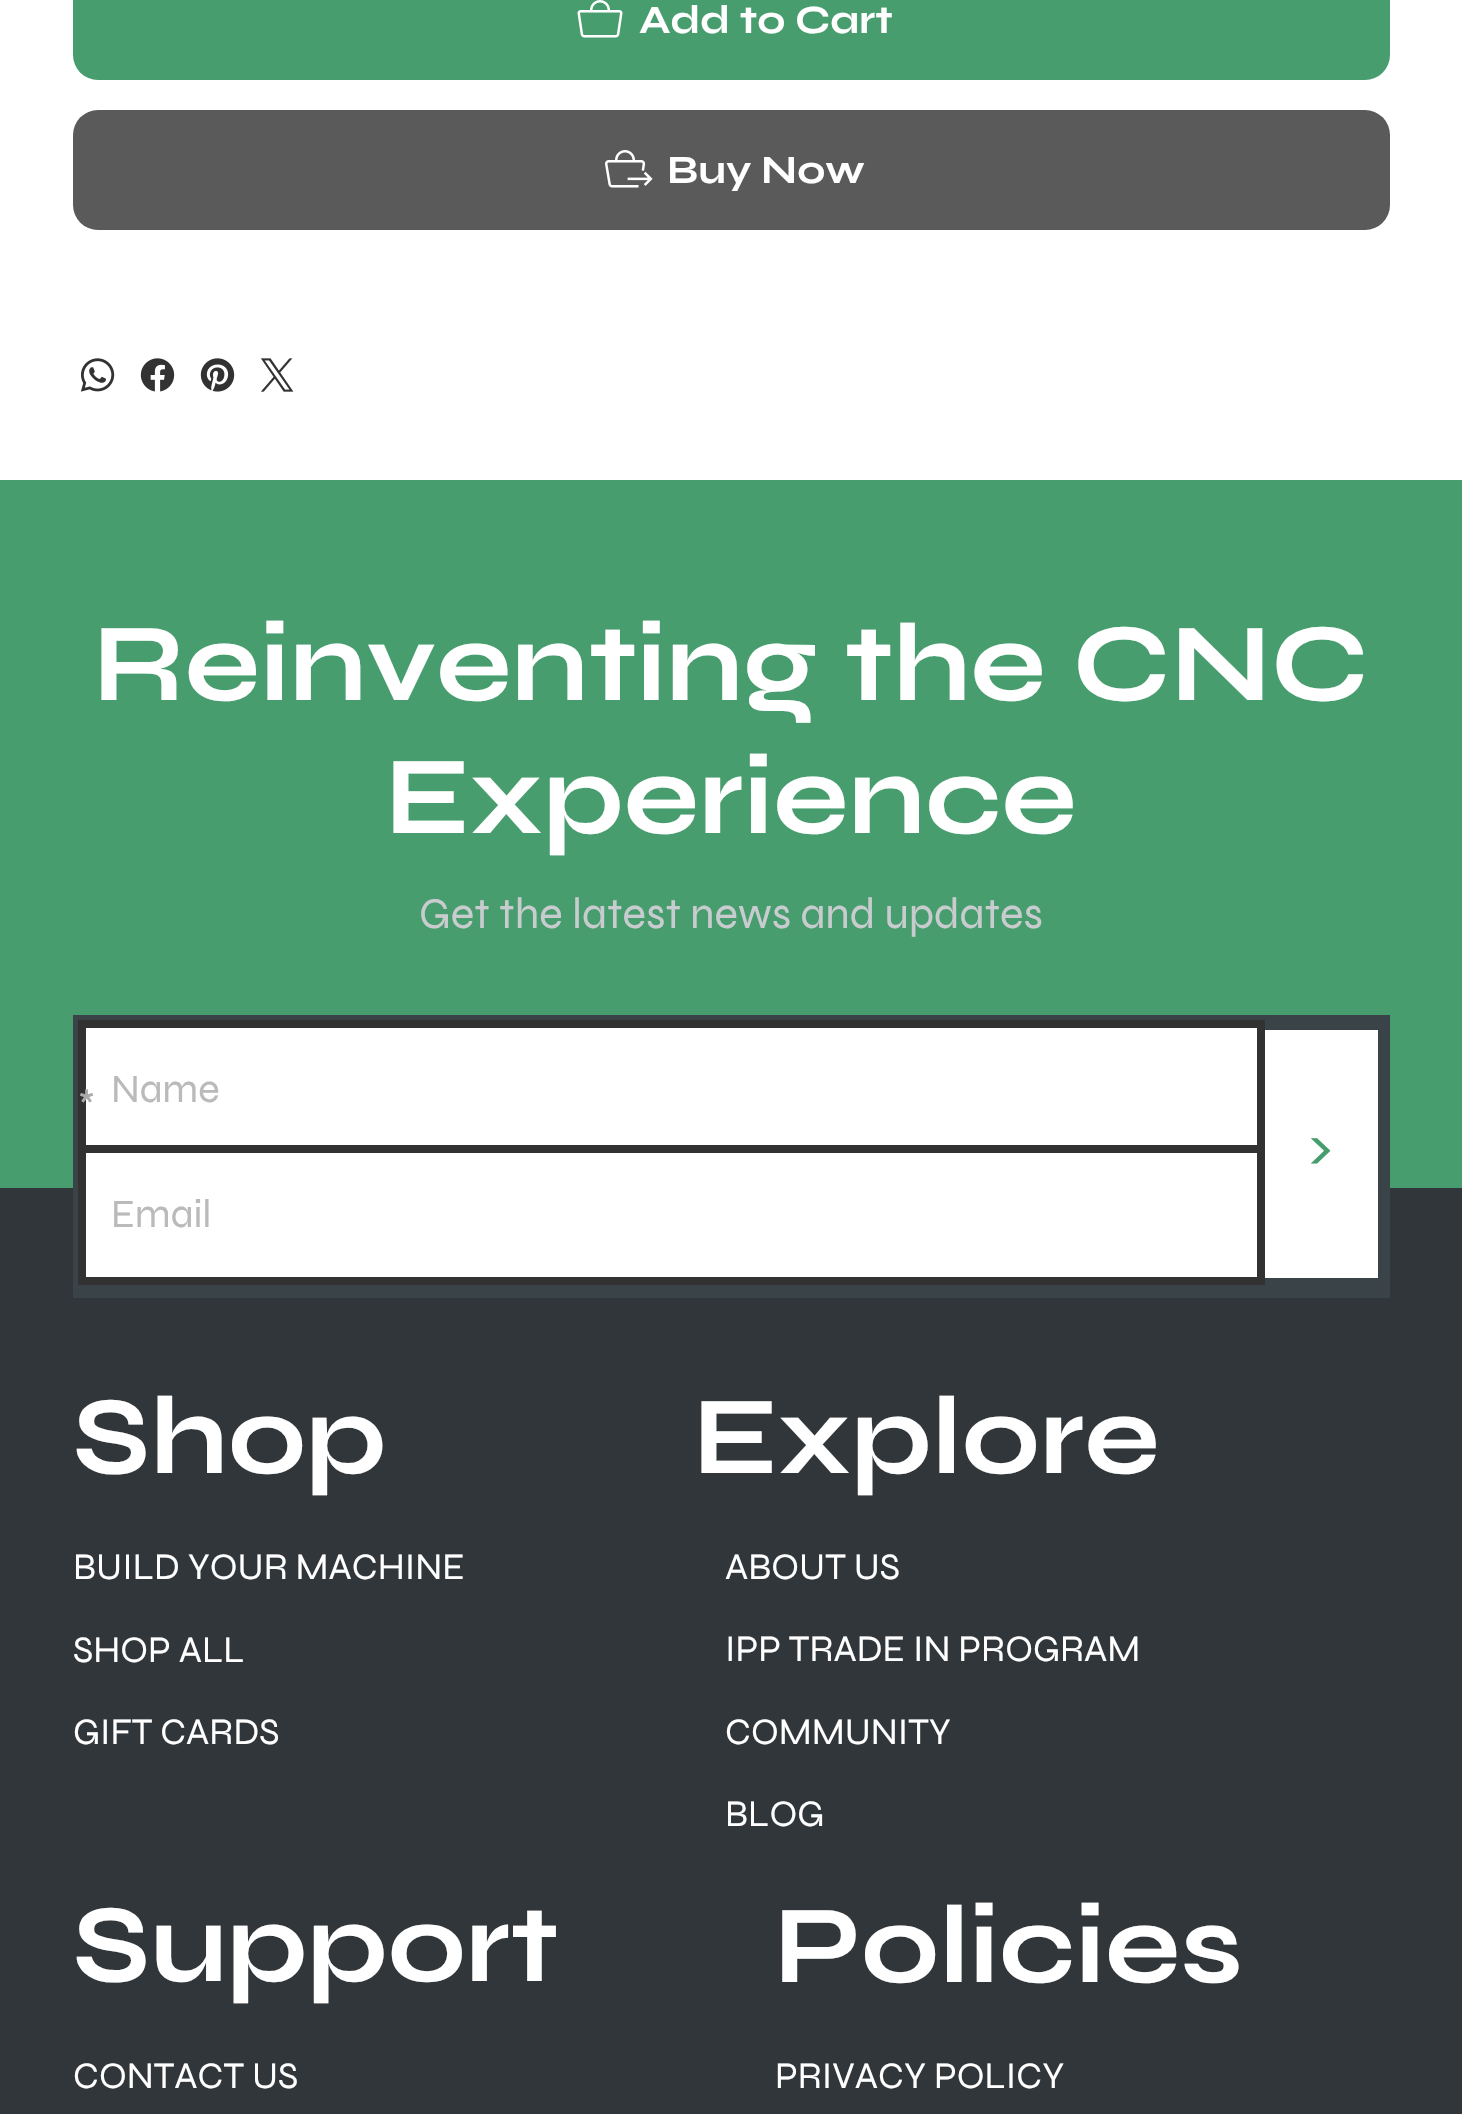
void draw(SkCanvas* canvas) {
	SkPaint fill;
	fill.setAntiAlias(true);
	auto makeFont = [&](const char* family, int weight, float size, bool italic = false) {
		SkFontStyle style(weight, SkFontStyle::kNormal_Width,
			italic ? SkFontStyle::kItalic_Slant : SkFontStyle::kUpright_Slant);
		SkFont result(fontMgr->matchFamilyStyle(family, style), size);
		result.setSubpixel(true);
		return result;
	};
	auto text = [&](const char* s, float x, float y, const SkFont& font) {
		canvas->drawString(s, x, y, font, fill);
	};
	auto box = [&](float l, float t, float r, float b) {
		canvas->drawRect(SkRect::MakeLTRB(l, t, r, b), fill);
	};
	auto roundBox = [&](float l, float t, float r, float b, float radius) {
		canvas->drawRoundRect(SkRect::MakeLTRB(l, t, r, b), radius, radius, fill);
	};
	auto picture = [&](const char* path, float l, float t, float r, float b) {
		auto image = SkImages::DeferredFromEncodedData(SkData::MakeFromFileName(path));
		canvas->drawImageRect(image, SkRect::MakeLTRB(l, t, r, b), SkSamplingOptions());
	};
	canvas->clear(0xFFFFFFFF);
	fill.setColor(0xFF479D6E);
	roundBox(73, -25, 1390, 80, 25);
	picture("image0.png", 577, 0, 623, 38);
	fill.setColor(0xFF5A5A5A);
	roundBox(73, 110, 1390, 230, 25);
	picture("image1.png", 605, 150, 653, 188);
	picture("image2.png", 80, 358, 115, 392);
	picture("image3.png", 140, 358, 175, 392);
	picture("image4.png", 200, 358, 235, 392);
	picture("image5.png", 261, 358, 294, 392);
	fill.setColor(0xFF479D6E);
	box(0, 480, 1462, 1188);
	fill.setColor(0xFF31363A);
	box(0, 1188, 1462, 2114);
	fill.setColor(0xFF394348);
	box(73, 1015, 1390, 1298);
	fill.setColor(0xFFFFFFFF);
	box(86, 1028, 1257, 1145);
	fill.setStyle(SkPaint::kStroke_Style);
	fill.setStrokeWidth(8);
	fill.setColor(0xFF323232);
	canvas->drawRect(SkRect::MakeLTRB(82, 1024, 1261, 1156), fill);
	fill.setStyle(SkPaint::kFill_Style);
	fill.setColor(0xFFFFFFFF);
	canvas->drawRect(SkRect::MakeLTRB(82, 1149, 1261, 1281), fill);
	fill.setStyle(SkPaint::kStroke_Style);
	fill.setColor(0xFF323232);
	canvas->drawRect(SkRect::MakeLTRB(82, 1149, 1261, 1281), fill);
	fill.setStyle(SkPaint::kFill_Style);
	fill.setColor(0xFFFFFFFF);
	box(1265, 1030, 1378, 1278);
	auto font1 = makeFont("Syne", 700, 40);
	text("Add to Cart", 639, 33, font1);
	text("Buy Now", 667, 183, font1);
	auto font2 = makeFont("Syne", 700, 111);
	text("Reinventing the CNC", 93, 700, font2);
	text("Experience", 385, 833, font2);
	auto font3 = makeFont("Syne", 400, 43.9f);
	fill.setColor(0xFFC9CCCE);
	text("Get the latest news and updates", 419, 928, font3);
	auto font4 = makeFont("Syne", 400, 40);
	fill.setColor(0xFFBABABA);
	text("Name", 111, 1102, font4);
	fill.setColor(0xFFAAAAAA);
	text("*", 78, 1118, font4);
	fill.setColor(0xFFBABABA);
	text("Email", 111, 1227, font4);
	auto font5 = makeFont("Poppins", 400, 55);
	fill.setColor(0xFF479D6E);
	text(">", 1309, 1171, font5);
	fill.setColor(0xFFFFFFFF);
	text("Shop", 73, 1473, font2);
	auto font6 = makeFont("Syne", 400, 37.5f);
	text("BUILD YOUR MACHINE", 73, 1579, font6);
	text("SHOP ALL", 73, 1662, font6);
	text("GIFT CARDS", 73, 1744, font6);
	text("Explore", 693, 1473, font2);
	text("ABOUT US", 725, 1579, font6);
	text("IPP TRADE IN PROGRAM", 725, 1661, font6);
	text("COMMUNITY", 725, 1744, font6);
	text("BLOG", 725, 1826, font6);
	text("Support", 73, 1981, font2);
	text("CONTACT US", 73, 2088, font6);
	text("Policies", 774, 1982, font2);
	text("PRIVACY POLICY", 775, 2088, font6);
}
